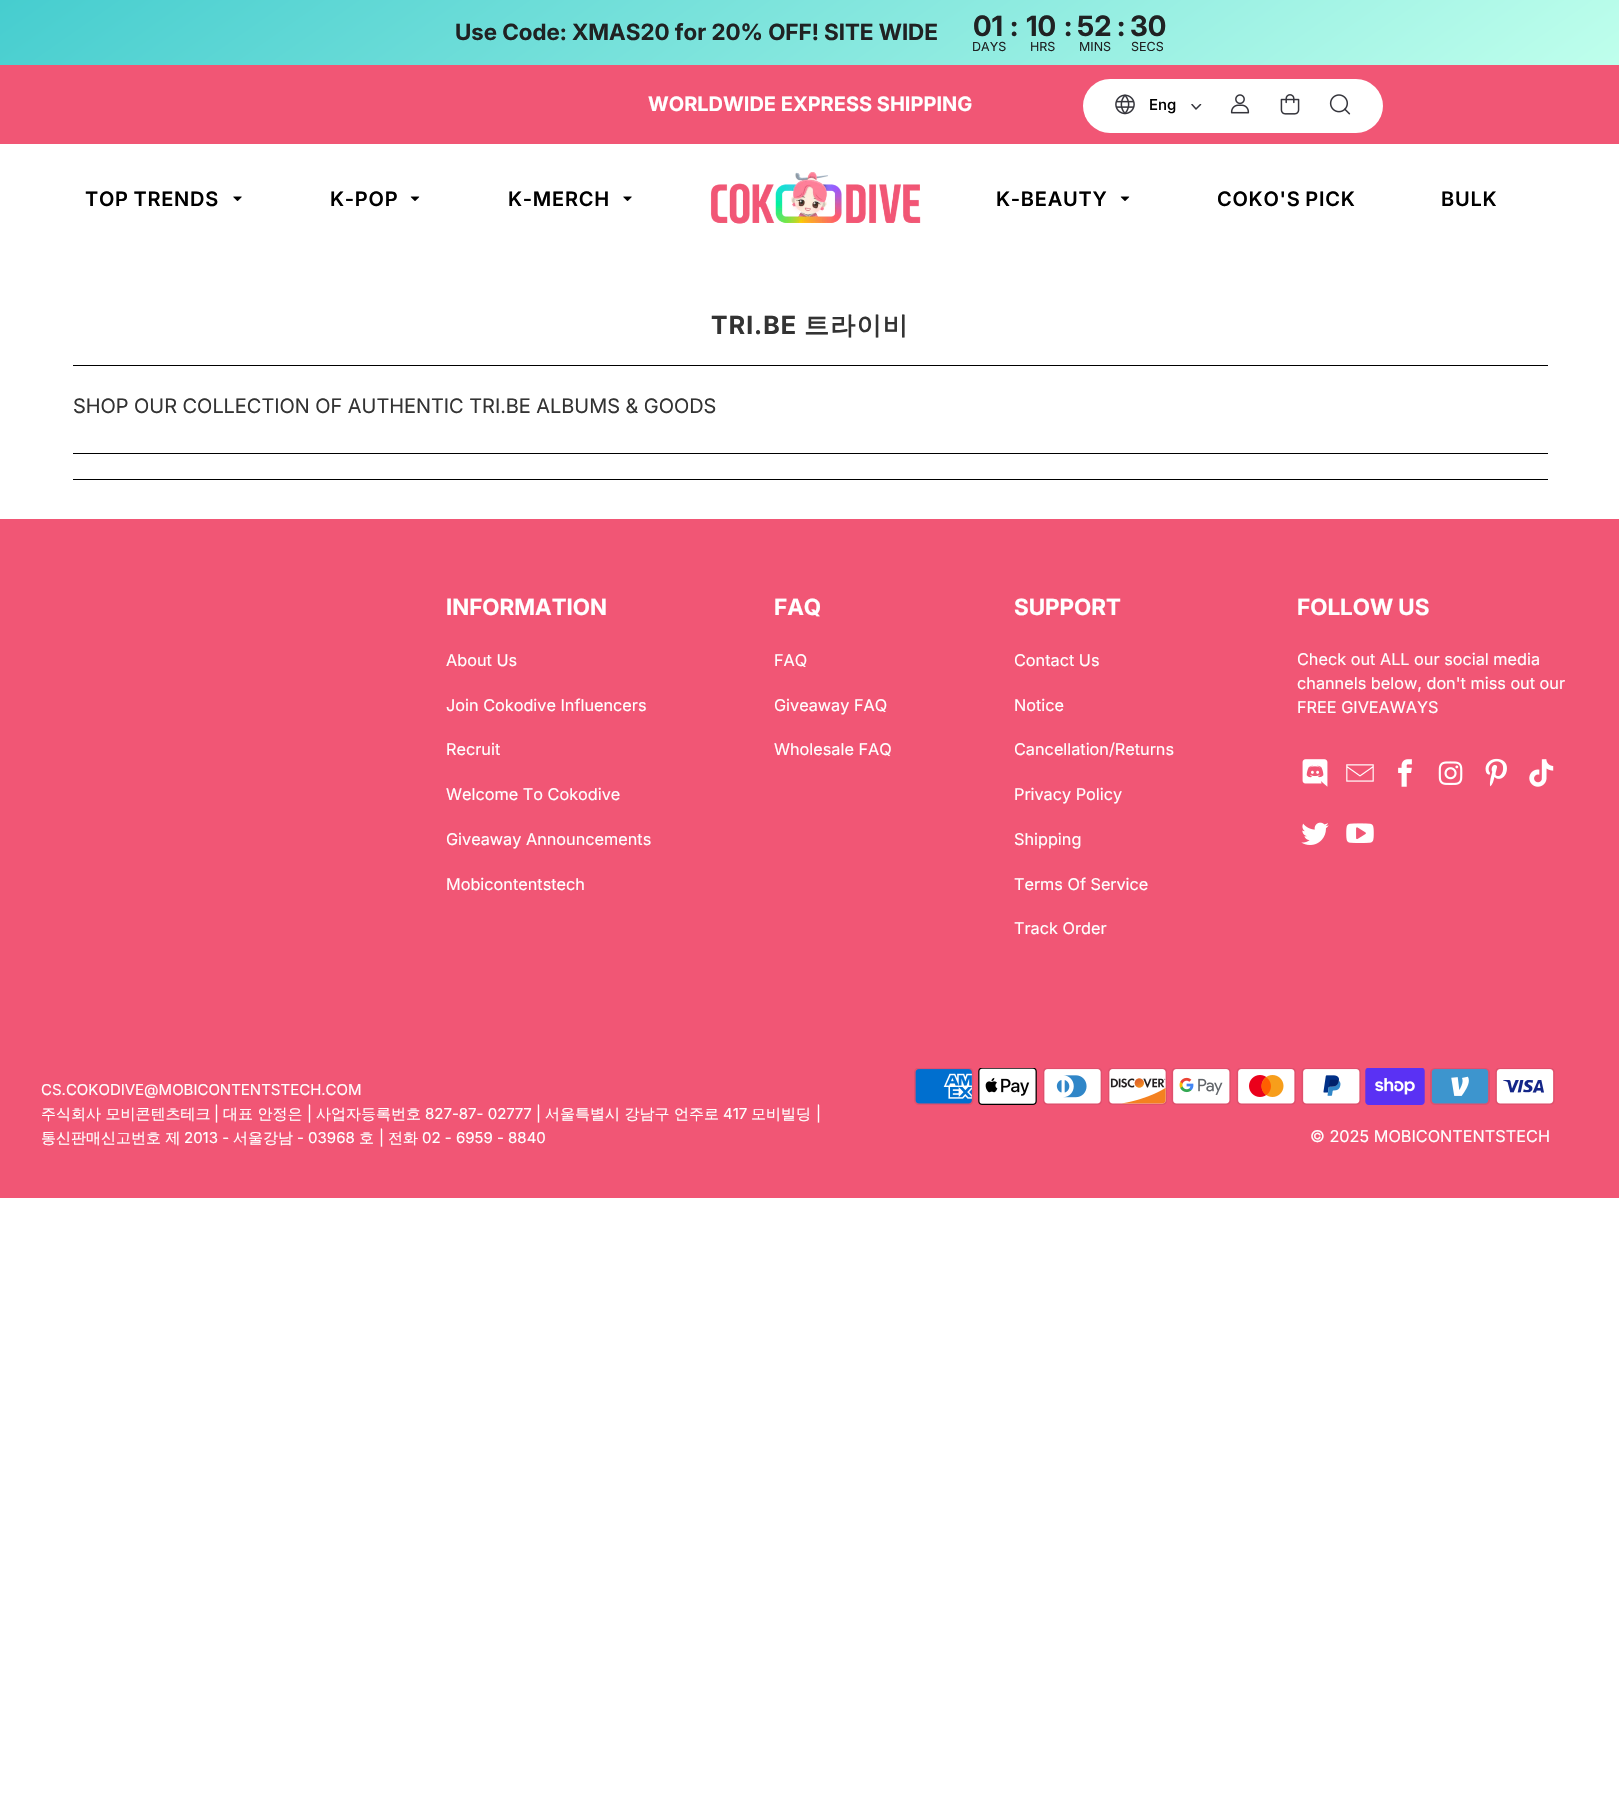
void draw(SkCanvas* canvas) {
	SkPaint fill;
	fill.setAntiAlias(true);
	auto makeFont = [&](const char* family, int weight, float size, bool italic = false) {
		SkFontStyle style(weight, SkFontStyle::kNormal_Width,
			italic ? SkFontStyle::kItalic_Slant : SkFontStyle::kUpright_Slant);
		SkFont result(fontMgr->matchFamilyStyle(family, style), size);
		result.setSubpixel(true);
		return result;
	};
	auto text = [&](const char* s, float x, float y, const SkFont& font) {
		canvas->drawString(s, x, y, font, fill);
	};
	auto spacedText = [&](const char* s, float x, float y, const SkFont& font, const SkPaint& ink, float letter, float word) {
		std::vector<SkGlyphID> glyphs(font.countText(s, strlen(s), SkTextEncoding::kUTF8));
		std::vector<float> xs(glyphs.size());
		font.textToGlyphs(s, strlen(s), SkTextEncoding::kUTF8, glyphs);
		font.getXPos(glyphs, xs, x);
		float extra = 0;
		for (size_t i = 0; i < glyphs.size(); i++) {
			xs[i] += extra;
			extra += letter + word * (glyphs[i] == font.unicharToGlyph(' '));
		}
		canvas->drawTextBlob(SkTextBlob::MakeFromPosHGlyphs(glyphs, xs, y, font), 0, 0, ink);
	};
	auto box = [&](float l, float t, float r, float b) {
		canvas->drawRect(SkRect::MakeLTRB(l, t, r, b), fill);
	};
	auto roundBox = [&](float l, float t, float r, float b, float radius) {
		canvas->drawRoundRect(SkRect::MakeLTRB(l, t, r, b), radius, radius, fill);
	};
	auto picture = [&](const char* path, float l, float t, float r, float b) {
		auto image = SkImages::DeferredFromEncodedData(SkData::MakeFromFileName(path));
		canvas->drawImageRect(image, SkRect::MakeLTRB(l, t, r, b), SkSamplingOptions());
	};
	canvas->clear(0xFFFFFFFF);
	{
		const SkColor colors[] = {0xFF46CDCF, 0xFFBFFFEC};
		const float stops[] = {0, 1};
		const SkPoint ends[] = {{528, -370}, {1092, 435}};
		fill.setShader(SkGradientShader::MakeLinear(ends, colors, stops, 2, SkTileMode::kClamp));
		fill.setAlpha(255);
	}
	box(0, 0, 1619, 65);
	fill.setShader(nullptr);
	fill.setColor(0xFFF15675);
	box(0, 65, 1619, 144);
	fill.setColor(0xFFFFFFFF);
	roundBox(1083, 79, 1383, 133, 27);
	picture("image0.png", 1115, 94, 1135, 115);
	canvas->save();
	canvas->clipRect(SkRect::MakeLTRB(1190, 104, 1203, 111));
	fill.setStyle(SkPaint::kStroke_Style);
	fill.setStrokeWidth(1.5f);
	fill.setStrokeCap(SkPaint::kRound_Cap);
	fill.setStrokeJoin(SkPaint::kRound_Join);
	fill.setColor(0xFF35353C);
	canvas->drawPath(SkPathBuilder().moveTo(1192, 104.5f).lineTo(1196, 109).lineTo(1200.5f, 104.5f).detach(), fill);
	canvas->restore();
	picture("image1.png", 1230, 94, 1250, 114);
	picture("image2.png", 1280, 94, 1300, 115);
	picture("image3.png", 1329, 94, 1351, 115);
	picture("image4.png", 233, 196, 242, 201);
	picture("image5.png", 410, 196, 420, 201);
	picture("image4.png", 623, 196, 632, 201);
	picture("image6.png", 710, 172, 921, 224);
	picture("image5.png", 1120, 196, 1130, 201);
	fill.setStyle(SkPaint::kFill_Style);
	fill.setColor(0xFF000000);
	box(73, 365, 1548, 366);
	box(73, 453, 1548, 454);
	box(73, 479, 1548, 480);
	fill.setColor(0xFFF15675);
	box(0, 519, 1619, 1198);
	picture("image7.png", 1302, 759, 1328, 787);
	picture("image8.png", 1346, 764, 1374, 782);
	picture("image9.png", 1398, 759, 1412, 787);
	picture("image10.png", 1438, 761, 1463, 785);
	picture("image11.png", 1485, 758, 1507, 787);
	picture("image12.png", 1529, 759, 1554, 787);
	picture("image13.png", 1301, 822, 1329, 845);
	picture("image14.png", 1346, 823, 1374, 843);
	picture("image15.png", 914, 1068, 974, 1105);
	picture("image16.png", 978, 1068, 1037, 1105);
	picture("image17.png", 1043, 1068, 1102, 1105);
	picture("image18.png", 1108, 1068, 1167, 1105);
	picture("image19.png", 1171, 1068, 1231, 1105);
	picture("image20.png", 1236, 1068, 1296, 1105);
	picture("image21.png", 1301, 1068, 1361, 1105);
	picture("image22.png", 1365, 1068, 1425, 1105);
	picture("image23.png", 1430, 1068, 1490, 1105);
	picture("image24.png", 1495, 1068, 1555, 1105);
	auto font1 = makeFont("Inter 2", 700, 22.5f);
	fill.setColor(0xFF202223);
	text("Use Code: XMAS20 for 20% OFF! SITE WIDE", 455, 40, font1);
	auto font2 = makeFont("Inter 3", 700, 28);
	text("01", 973, 36, font2);
	text(":", 1010, 36, font2);
	text("10", 1026, 36, font2);
	text(":", 1064, 36, font2);
	text("52", 1077, 36, font2);
	text(":", 1117, 36, font2);
	text("30", 1130, 36, font2);
	auto font3 = makeFont("Inter 2", 400, 12.5f);
	text("DAYS", 972, 51, font3);
	text("HRS", 1030, 51, font3);
	text("MINS", 1079, 51, font3);
	text("SECS", 1131, 51, font3);
	auto font4 = makeFont("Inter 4", 700, 20);
	fill.setColor(0xFFFFFFFF);
	text("WORLDWIDE EXPRESS SHIPPING", 648, 111, font4);
	auto font5 = makeFont("Inter", 500, 15);
	fill.setColor(0xFF000000);
	text("Eng", 1149, 110, font5);
	auto font6 = makeFont("Inter", 600, 20);
	spacedText("TOP TRENDS", 85, 206, font6, fill, 0.75f, -1);
	spacedText("K-POP", 330, 206, font6, fill, 0.75f, 0);
	spacedText("K-MERCH", 508, 206, font6, fill, 0.75f, 0);
	spacedText("K-BEAUTY", 996, 206, font6, fill, 0.75f, 0);
	spacedText("COKO'S PICK", 1217, 206, font6, fill, 0.75f, -1);
	spacedText("BULK", 1441, 206, font6, fill, 0.75f, 0);
	auto font7 = makeFont("Inter", 700, 25);
	fill.setColor(0xFF333333);
	spacedText("TRI.BE", 711, 334, font7, fill, 1.25f, 0);
	auto font8 = makeFont("WenQuanYi Zen Hei", 700, 25);
	spacedText("트라이비", 804, 334, font8, fill, 1.25f, 0);
	auto font9 = makeFont("Inter", 400, 20);
	text("SHOP OUR COLLECTION OF AUTHENTIC TRI.BE ALBUMS & GOODS", 73, 413, font9);
	fill.setColor(0xFFFFFFFF);
	text("INFORMATION", 446, 615, font1);
	auto font10 = makeFont("Inter 2", 400, 16.25f);
	text("About Us", 446, 666, font10);
	text("Join Cokodive Influencers", 446, 711, font10);
	text("Recruit", 446, 755, font10);
	text("Welcome To Cokodive", 446, 800, font10);
	text("Giveaway Announcements", 446, 845, font10);
	text("Mobicontentstech", 446, 890, font10);
	text("FAQ", 774, 615, font1);
	text("FAQ", 774, 666, font10);
	text("Giveaway FAQ", 774, 711, font10);
	text("Wholesale FAQ", 774, 755, font10);
	text("SUPPORT", 1014, 615, font1);
	text("Contact Us", 1014, 666, font10);
	text("Notice", 1014, 711, font10);
	text("Cancellation/Returns", 1014, 755, font10);
	text("Privacy Policy", 1014, 800, font10);
	text("Shipping", 1014, 845, font10);
	text("Terms Of Service", 1014, 890, font10);
	text("Track Order", 1014, 934, font10);
	text("FOLLOW US", 1297, 615, font1);
	text("Check out ALL our social media", 1297, 665, font10);
	text("channels below, don't miss out our", 1297, 689, font10);
	text("FREE GIVEAWAYS", 1297, 713, font10);
	auto font11 = makeFont("Inter 2", 400, 15);
	text("CS.COKODIVE@MOBICONTENTSTECH.COM", 41, 1095, font11);
	auto font12 = makeFont("WenQuanYi Zen Hei", 500, 15);
	text("주식회사 모비콘텐츠테크", 41, 1119, font12);
	text("|", 214, 1119, font11);
	text("대표 안정은", 223, 1119, font12);
	text("|", 307, 1119, font11);
	text("사업자등록번호", 316, 1119, font12);
	text("827-87- 02777 |", 425, 1119, font11);
	text("서울특별시 강남구 언주로", 545, 1119, font12);
	text("417", 723, 1119, font11);
	text("모비빌딩", 751, 1119, font12);
	text("|", 816, 1119, font11);
	text("통신판매신고번호 제", 41, 1143, font12);
	text("2013 -", 184, 1143, font11);
	text("서울강남", 233, 1143, font12);
	text("- 03968", 297, 1143, font11);
	text("호", 359, 1143, font12);
	text("|", 379, 1143, font11);
	text("전화", 388, 1143, font12);
	text("02 - 6959 - 8840", 422, 1143, font11);
	text("© 2025 MOBICONTENTSTECH", 1310, 1142, font10);
}
